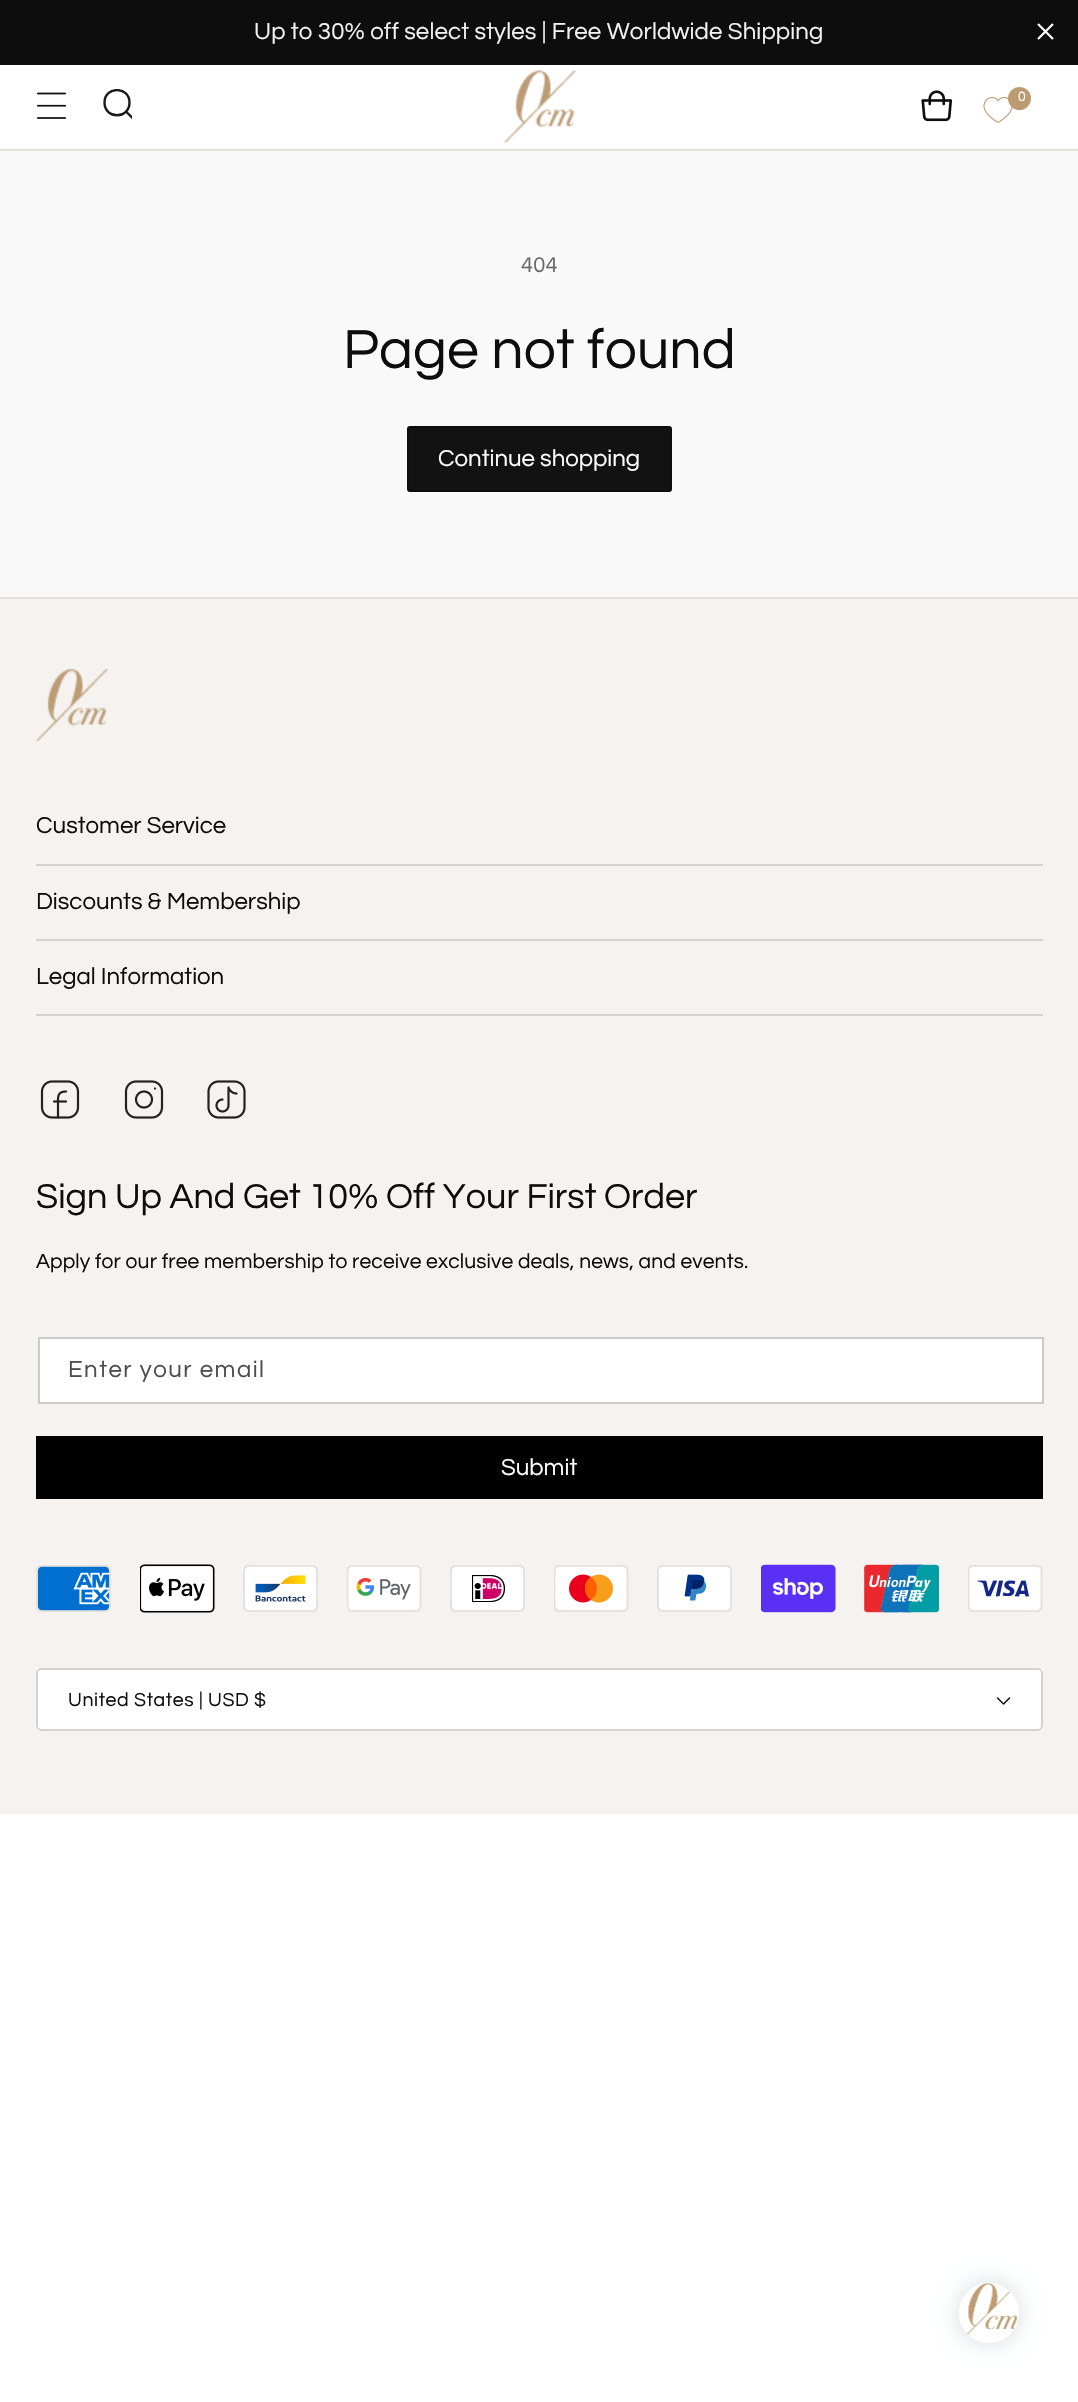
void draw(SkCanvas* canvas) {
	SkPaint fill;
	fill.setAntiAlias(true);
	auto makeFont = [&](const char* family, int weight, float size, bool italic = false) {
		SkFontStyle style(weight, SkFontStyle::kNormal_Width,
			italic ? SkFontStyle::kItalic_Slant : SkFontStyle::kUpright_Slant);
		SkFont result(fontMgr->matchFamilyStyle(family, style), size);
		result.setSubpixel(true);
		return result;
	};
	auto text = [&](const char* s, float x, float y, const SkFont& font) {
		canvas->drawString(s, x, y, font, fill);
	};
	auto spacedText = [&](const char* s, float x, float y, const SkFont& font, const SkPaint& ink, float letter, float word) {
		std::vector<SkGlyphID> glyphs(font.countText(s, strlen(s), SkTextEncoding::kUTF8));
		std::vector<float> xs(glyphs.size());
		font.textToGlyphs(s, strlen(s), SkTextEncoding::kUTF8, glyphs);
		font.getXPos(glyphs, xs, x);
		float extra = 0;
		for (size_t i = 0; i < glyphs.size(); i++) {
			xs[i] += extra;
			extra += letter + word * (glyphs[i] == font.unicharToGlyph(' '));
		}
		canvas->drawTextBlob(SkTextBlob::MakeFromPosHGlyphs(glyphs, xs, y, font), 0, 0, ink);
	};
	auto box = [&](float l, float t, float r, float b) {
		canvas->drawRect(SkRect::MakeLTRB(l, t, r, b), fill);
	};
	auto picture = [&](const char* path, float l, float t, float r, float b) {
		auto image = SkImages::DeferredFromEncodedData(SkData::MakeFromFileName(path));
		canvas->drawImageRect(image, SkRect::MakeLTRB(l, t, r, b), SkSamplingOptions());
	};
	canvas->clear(0xFFFFFFFF);
	fill.setColor(0xFFEAE1D6);
	box(0, 149, 1078, 150);
	fill.setColor(0xFF0E0D0D);
	box(0, 0, 1078, 65);
	fill.setStyle(SkPaint::kStroke_Style);
	fill.setStrokeWidth(2.2f);
	fill.setStrokeJoin(SkPaint::kRound_Join);
	fill.setColor(0xFFFFFEFE);
	canvas->drawPath(SkPathBuilder().moveTo(1038, 24).lineTo(1053, 39).moveTo(1038, 39).lineTo(1053, 24).detach(), fill);
	picture("image0.png", 36, 92, 67, 119);
	canvas->save();
	canvas->clipRect(SkRect::MakeLTRB(102, 89, 132, 119));
	fill.setStrokeWidth(2.4f);
	fill.setStrokeCap(SkPaint::kRound_Cap);
	fill.setColor(0xFF191919);
	canvas->drawPath(SkPathBuilder().moveTo(126.5f, 112).lineTo(133, 118.5f).moveTo(104.5f, 102.5f).cubicTo(104.5f, 119.5f, 129.5f, 119.5f, 129.5f, 102.5f).cubicTo(129.5f, 86, 104.5f, 86, 104.5f, 102.5f).close().detach(), fill);
	canvas->restore();
	picture("image1.png", 504, 70, 576, 143);
	picture("image2.png", 921, 90, 953, 122);
	picture("image3.png", 983, 97, 1013, 123);
	fill.setStyle(SkPaint::kFill_Style);
	fill.setColor(0xFFBC9B73);
	canvas->drawCircle(1019.5f, 98.5f, 11.5f, fill);
	fill.setColor(0xFFF9F9F9);
	box(0, 151, 1078, 597);
	fill.setColor(0xFFE7DED3);
	box(0, 150, 1078, 151);
	fill.setColor(0xFF121212);
	canvas->drawRoundRect(SkRect::MakeLTRB(408, 427, 671, 491), 2, 2, fill);
	fill.setStyle(SkPaint::kStroke_Style);
	fill.setStrokeWidth(2);
	fill.setStrokeCap(SkPaint::kButt_Cap);
	fill.setStrokeJoin(SkPaint::kMiter_Join);
	fill.setColor(0xFF0E0D0D);
	canvas->drawRoundRect(SkRect::MakeLTRB(408, 427, 671, 491), 2, 2, fill);
	fill.setStyle(SkPaint::kFill_Style);
	fill.setColor(0xFFF5F2F0);
	box(0, 599, 1078, 1814);
	fill.setColor(0xFFE3E0DE);
	box(0, 597, 1078, 599);
	picture("image4.png", 36, 669, 108, 741);
	fill.setColor(0xFFD3D3D3);
	box(36, 864, 1043, 866);
	box(36, 1014, 1043, 1016);
	box(36, 939, 1043, 941);
	picture("image5.png", 40, 1080, 80, 1119);
	picture("image6.png", 124, 1080, 164, 1119);
	picture("image7.png", 207, 1080, 246, 1119);
	fill.setColor(0xFFFFFFFF);
	canvas->drawRect(SkRect::MakeLTRB(39, 1338, 1043, 1403), fill);
	fill.setStyle(SkPaint::kStroke_Style);
	fill.setColor(0xFFCBCBCB);
	canvas->drawRect(SkRect::MakeLTRB(39, 1338, 1043, 1403), fill);
	fill.setStyle(SkPaint::kFill_Style);
	fill.setColor(0xFF000000);
	box(36, 1436, 1043, 1499);
	picture("image8.png", 36, 1565, 111, 1612);
	picture("image9.png", 140, 1564, 215, 1613);
	picture("image10.png", 243, 1565, 318, 1612);
	picture("image11.png", 347, 1565, 422, 1612);
	picture("image12.png", 450, 1565, 525, 1612);
	picture("image13.png", 554, 1565, 629, 1612);
	picture("image14.png", 657, 1565, 732, 1612);
	picture("image15.png", 761, 1564, 836, 1613);
	picture("image16.png", 864, 1564, 939, 1613);
	picture("image17.png", 968, 1565, 1043, 1612);
	fill.setColor(0xFFFFFFFF);
	box(36, 1668, 1043, 1731);
	picture("image18.png", 996, 1697, 1011, 1705);
	fill.setStyle(SkPaint::kStroke_Style);
	fill.setColor(0xFFD3D3D3);
	canvas->drawRoundRect(SkRect::MakeLTRB(37, 1669, 1042, 1730), 4, 4, fill);
	canvas->save();
	canvas->clipPath(SkPathBuilder(SkPathFillType::kEvenOdd).moveTo(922, 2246).lineTo(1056, 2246).lineTo(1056, 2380).lineTo(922, 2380).close().moveTo(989, 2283).cubicTo(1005.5f, 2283, 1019, 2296.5f, 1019, 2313).cubicTo(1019, 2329.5f, 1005.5f, 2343, 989, 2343).cubicTo(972.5f, 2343, 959, 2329.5f, 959, 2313).cubicTo(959, 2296.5f, 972.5f, 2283, 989, 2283).close().detach(), true);
	fill.setStyle(SkPaint::kFill_Style);
	fill.setColor(0x2900122E);
	fill.setMaskFilter(SkMaskFilter::MakeBlur(kNormal_SkBlurStyle, 12));
	canvas->drawRoundRect(SkRect::MakeLTRB(959, 2283, 1019, 2343), 30, 30, fill);
	fill.setMaskFilter(nullptr);
	canvas->restore();
	picture("image19.png", 966, 2283, 1018, 2335);
	auto font1 = makeFont("Questrial", 400, 24);
	fill.setColor(0xFFF2F2F2);
	spacedText("Up to 30% off select styles | Free Worldwide Shipping", 254, 39, font1, fill, 0.15f, 0);
	auto font2 = makeFont("Questrial", 400, 14);
	fill.setColor(0xFFFFFFFF);
	spacedText("0", 1018, 101, font2, fill, 0.15f, 0);
	auto font3 = makeFont("Questrial", 400, 22);
	fill.setColor(0xFF666666);
	spacedText("404", 521, 272, font3, fill, 0.15f, 0);
	auto font4 = makeFont("Questrial", 400, 57);
	fill.setColor(0xFF0E0D0D);
	spacedText("Page not found", 343, 368, font4, fill, 0.15f, 0);
	fill.setColor(0xFFFFFFFF);
	text("Continue shopping", 438, 466, font1);
	fill.setColor(0xFF0E0D0D);
	text("Customer Service", 36, 833, font1);
	text("Discounts & Membership", 36, 909, font1);
	text("Legal Information", 36, 984, font1);
	auto font5 = makeFont("Questrial", 400, 36);
	text("Sign Up And Get 10% Off Your First Order", 36, 1208, font5);
	auto font6 = makeFont("Questrial", 400, 21);
	spacedText("Apply for our free membership to receive exclusive deals, news, and events.", 36, 1268, font6, fill, 0.15f, 0);
	fill.setColor(0xFF4D4D4D);
	spacedText("Enter your email", 68, 1377, font1, fill, 1.5f, 0);
	fill.setColor(0xFFFFFFFF);
	text("Submit", 501, 1475, font1);
	auto font7 = makeFont("Questrial", 400, 19.5f);
	fill.setColor(0xFF0E0D0D);
	spacedText("United States | USD $", 68, 1706, font7, fill, 0.6f, 0);
}
